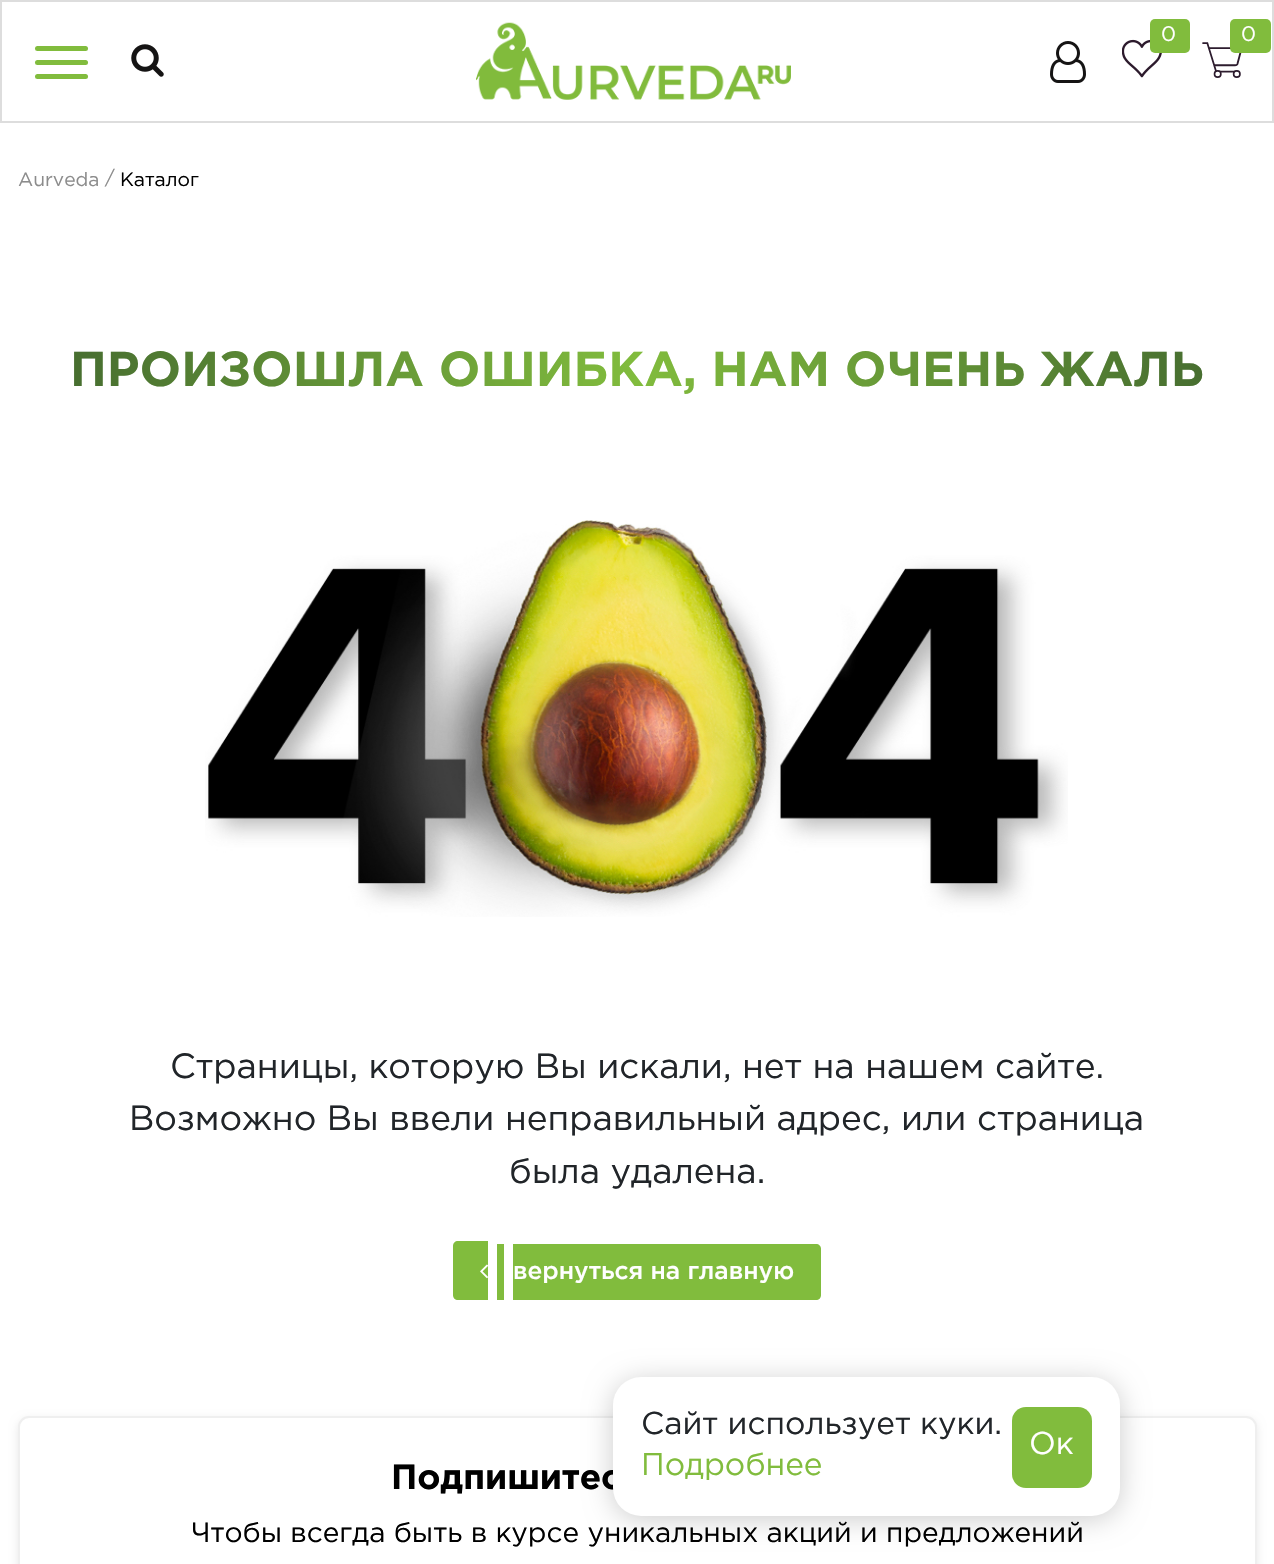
void draw(SkCanvas* canvas) {
	SkPaint fill;
	fill.setAntiAlias(true);
	auto makeFont = [&](const char* family, int weight, float size, bool italic = false) {
		SkFontStyle style(weight, SkFontStyle::kNormal_Width,
			italic ? SkFontStyle::kItalic_Slant : SkFontStyle::kUpright_Slant);
		SkFont result(fontMgr->matchFamilyStyle(family, style), size);
		result.setSubpixel(true);
		return result;
	};
	auto text = [&](const char* s, float x, float y, const SkFont& font) {
		canvas->drawString(s, x, y, font, fill);
	};
	auto box = [&](float l, float t, float r, float b) {
		canvas->drawRect(SkRect::MakeLTRB(l, t, r, b), fill);
	};
	auto roundBox = [&](float l, float t, float r, float b, float radius) {
		canvas->drawRoundRect(SkRect::MakeLTRB(l, t, r, b), radius, radius, fill);
	};
	auto picture = [&](const char* path, float l, float t, float r, float b) {
		auto image = SkImages::DeferredFromEncodedData(SkData::MakeFromFileName(path));
		canvas->drawImageRect(image, SkRect::MakeLTRB(l, t, r, b), SkSamplingOptions());
	};
	canvas->clear(0xFFFFFFFF);
	fill.setStyle(SkPaint::kStroke_Style);
	fill.setStrokeWidth(2);
	fill.setColor(0xFFDDDDDD);
	canvas->drawRect(SkRect::MakeLTRB(1, 1, 1273, 122), fill);
	picture("image0.png", 476, 22, 791, 100);
	picture("image1.png", 1122, 39, 1162, 78);
	fill.setStyle(SkPaint::kFill_Style);
	fill.setColor(0xFF81BC3D);
	roundBox(1150, 19, 1190, 53, 5);
	picture("image2.png", 1202, 42, 1242, 78);
	roundBox(1230, 19, 1271, 53, 5);
	picture("image3.png", 1050, 41, 1086, 83);
	roundBox(35, 60, 88, 65, 2.5f);
	roundBox(35, 46, 88, 51, 2.5f);
	roundBox(35, 74, 88, 79, 2.5f);
	picture("image4.png", 131, 44, 164, 77);
	picture("image5.png", 205, 520, 1068, 917);
	canvas->drawPath(SkPathBuilder().moveTo(458, 1241).lineTo(488, 1241).lineTo(488, 1300).lineTo(458, 1300).cubicTo(455, 1300, 453, 1298, 453, 1295).lineTo(453, 1246).cubicTo(453, 1243, 455, 1241, 458, 1241).close().detach(), fill);
	box(497, 1244, 504, 1300);
	canvas->drawPath(SkPathBuilder().moveTo(513, 1244).lineTo(816, 1244).cubicTo(819, 1244, 821, 1246, 821, 1249).lineTo(821, 1295).cubicTo(821, 1298, 819, 1300, 816, 1300).lineTo(513, 1300).close().detach(), fill);
	picture("image6.png", 480, 1264, 488, 1279);
	fill.setColor(0x17000000);
	fill.setMaskFilter(SkMaskFilter::MakeBlur(kNormal_SkBlurStyle, 4.5f));
	canvas->drawRoundRect(SkRect::MakeLTRB(18, 1419, 1257, 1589), 11, 11, fill);
	fill.setMaskFilter(nullptr);
	fill.setColor(0xFFFFFFFF);
	canvas->drawRoundRect(SkRect::MakeLTRB(19, 1417, 1256, 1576), 10, 10, fill);
	fill.setStyle(SkPaint::kStroke_Style);
	fill.setColor(0xFFEFEFEF);
	canvas->drawRoundRect(SkRect::MakeLTRB(19, 1417, 1256, 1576), 10, 10, fill);
	fill.setStyle(SkPaint::kFill_Style);
	fill.setColor(0x33000000);
	fill.setMaskFilter(SkMaskFilter::MakeBlur(kNormal_SkBlurStyle, 14));
	canvas->drawRoundRect(SkRect::MakeLTRB(613, 1381, 1120, 1519), 28, 28, fill);
	fill.setMaskFilter(nullptr);
	auto font1 = makeFont("Gotham", 400, 21);
	fill.setColor(0xFFFFFFFF);
	text("0", 1161, 41, font1);
	text("0", 1241, 41, font1);
	auto font2 = makeFont("Gotham", 400, 19.25f);
	fill.setColor(0xFF8C8C8C);
	text("Aurveda", 18, 186, font2);
	text("/", 105, 184, font2);
	fill.setColor(0xFF000000);
	text("Каталог", 120, 186, font2);
	auto font3 = makeFont("Gotham", 700, 49);
	{
		const SkColor colors[] = {0xFF42672F, 0xFF81BC3D, 0xFF42672F};
		const float stops[] = {0, 0.5f, 1};
		const SkPoint ends[] = {{18, 372}, {1257, 372}};
		fill.setShader(SkGradientShader::MakeLinear(ends, colors, stops, 3, SkTileMode::kClamp));
		fill.setAlpha(255);
	}
	text("ПРОИЗОШЛА ОШИБКА, НАМ ОЧЕНЬ ЖАЛЬ", 70, 386, font3);
	auto font4 = makeFont("Gotham", 400, 35);
	fill.setShader(nullptr);
	fill.setColor(0xFF212529);
	text("Страницы, которую Вы искали, нет на нашем сайте.", 170, 1078, font4);
	text("Возможно Вы ввели неправильный адрес, или страница", 129, 1130, font4);
	text("была удалена.", 509, 1183, font4);
	auto font5 = makeFont("Gotham", 500, 24.5f);
	fill.setColor(0xFFFFFFFF);
	text("вернуться на главную", 513, 1279, font5);
	auto font6 = makeFont("Gotham", 700, 35);
	fill.setColor(0xFF000000);
	text("Подпишитес", 391, 1489, font6);
	fill.setColor(0xFFFFFFFF);
	roundBox(613, 1377, 1120, 1516, 28);
	fill.setColor(0xFF81BC3D);
	roundBox(1012, 1407, 1092, 1488, 14);
	auto font7 = makeFont("Gotham", 400, 31.5f);
	fill.setColor(0xFFFFFFFF);
	text("Ок", 1029, 1454, font7);
	fill.setColor(0xFF81BC3D);
	text("Подробнее", 641, 1475, font7);
	fill.setColor(0xFF212529);
	text("Сайт использует куки.", 641, 1434, font7);
	auto font8 = makeFont("Gotham", 400, 28);
	fill.setColor(0xFF000000);
	text("Чтобы всегда быть в курсе уникальных акций и предложений", 191, 1542, font8);
}
